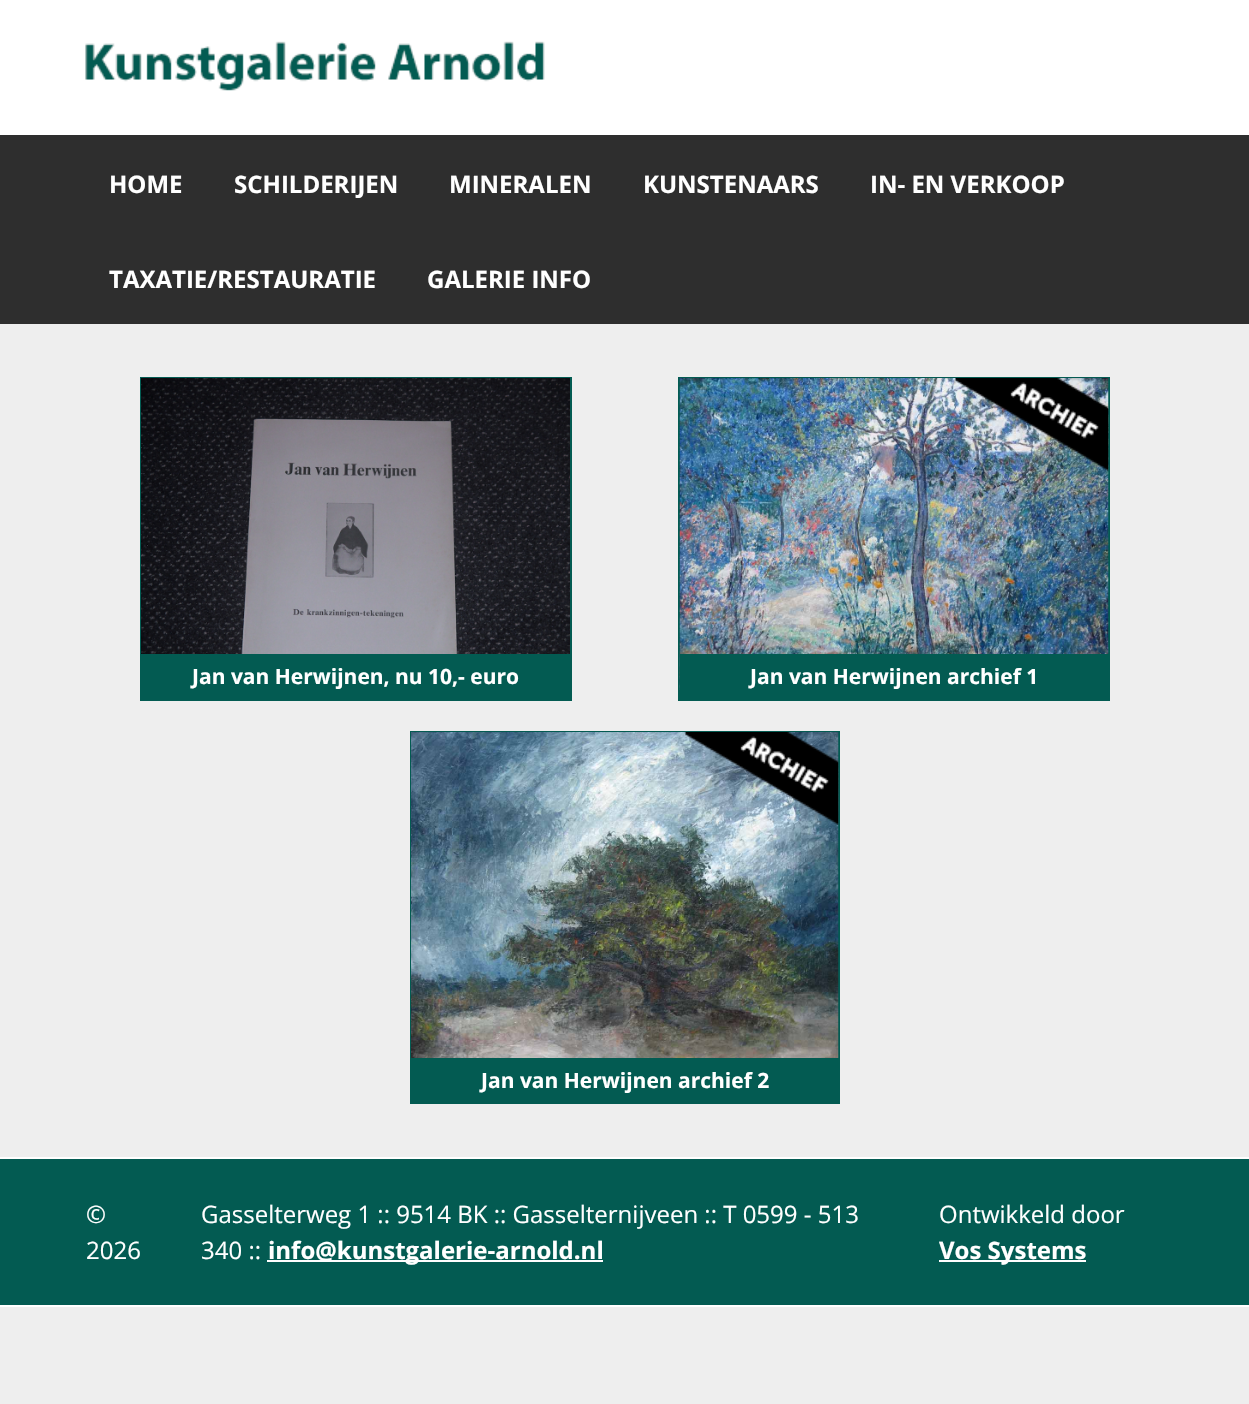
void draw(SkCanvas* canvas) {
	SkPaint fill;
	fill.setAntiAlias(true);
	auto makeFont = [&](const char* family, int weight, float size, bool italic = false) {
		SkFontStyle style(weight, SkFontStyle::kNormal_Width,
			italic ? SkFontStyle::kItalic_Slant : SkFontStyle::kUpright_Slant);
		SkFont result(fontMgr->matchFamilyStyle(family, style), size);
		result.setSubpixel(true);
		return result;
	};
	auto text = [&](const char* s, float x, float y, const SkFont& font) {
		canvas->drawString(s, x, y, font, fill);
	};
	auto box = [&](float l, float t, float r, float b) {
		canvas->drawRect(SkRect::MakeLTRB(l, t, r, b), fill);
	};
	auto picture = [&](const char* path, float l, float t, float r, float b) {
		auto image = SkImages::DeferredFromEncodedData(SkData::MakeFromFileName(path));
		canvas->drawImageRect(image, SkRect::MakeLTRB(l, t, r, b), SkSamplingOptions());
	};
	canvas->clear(0xFFEEEEEE);
	fill.setColor(0xFFFFFFFF);
	box(0, 0, 1249, 135);
	picture("image0.png", 85, 41, 545, 91);
	fill.setColor(0xFF2E2E2E);
	box(0, 135, 1249, 324);
	fill.setStyle(SkPaint::kStroke_Style);
	fill.setStrokeWidth(2);
	fill.setColor(0xFF035B52);
	canvas->drawRect(SkRect::MakeLTRB(141, 378, 571, 700), fill);
	picture("image1.png", 141, 378, 570, 654);
	fill.setStyle(SkPaint::kFill_Style);
	box(142, 654, 570, 699);
	fill.setStyle(SkPaint::kStroke_Style);
	canvas->drawRect(SkRect::MakeLTRB(679, 378, 1109, 700), fill);
	picture("image2.png", 679, 378, 1109, 690);
	picture("image3.png", 955, 378, 1109, 471);
	fill.setStyle(SkPaint::kFill_Style);
	box(680, 654, 1109, 699);
	fill.setStyle(SkPaint::kStroke_Style);
	canvas->drawRect(SkRect::MakeLTRB(411, 732, 839, 1103), fill);
	picture("image4.png", 411, 732, 839, 1058);
	picture("image5.png", 685, 732, 839, 825);
	fill.setStyle(SkPaint::kFill_Style);
	box(412, 1058, 838, 1102);
	box(0, 1159, 1249, 1305);
	fill.setColor(0xFFFFFFFF);
	box(0, 1157, 1249, 1159);
	box(0, 1305, 1249, 1307);
	box(267, 1260, 603, 1262);
	box(939, 1260, 1086, 1262);
	auto font1 = makeFont("Open Sans", 700, 24);
	text("HOME", 109, 193, font1);
	text("SCHILDERIJEN", 234, 193, font1);
	text("MINERALEN", 449, 193, font1);
	text("KUNSTENAARS", 643, 193, font1);
	text("IN- EN VERKOOP", 870, 193, font1);
	text("TAXATIE/RESTAURATIE", 109, 288, font1);
	text("GALERIE INFO", 427, 288, font1);
	auto font2 = makeFont("Open Sans", 700, 21);
	text("Jan van Herwijnen, nu 10,- euro", 192, 684, font2);
	text("Jan van Herwijnen archief 1", 750, 684, font2);
	text("Jan van Herwijnen archief 2", 481, 1088, font2);
	auto font3 = makeFont("Open Sans", 400, 24);
	text("©", 86, 1223, font3);
	text("2026", 86, 1259, font3);
	text("Gasselterweg 1 :: 9514 BK :: Gasselternijveen :: T 0599 - 513", 201, 1223, font3);
	text("340 ::", 201, 1259, font3);
	text("info@kunstgalerie-arnold.nl", 268, 1259, font1);
	text("Ontwikkeld door", 939, 1223, font3);
	text("Vos Systems", 939, 1259, font1);
}
